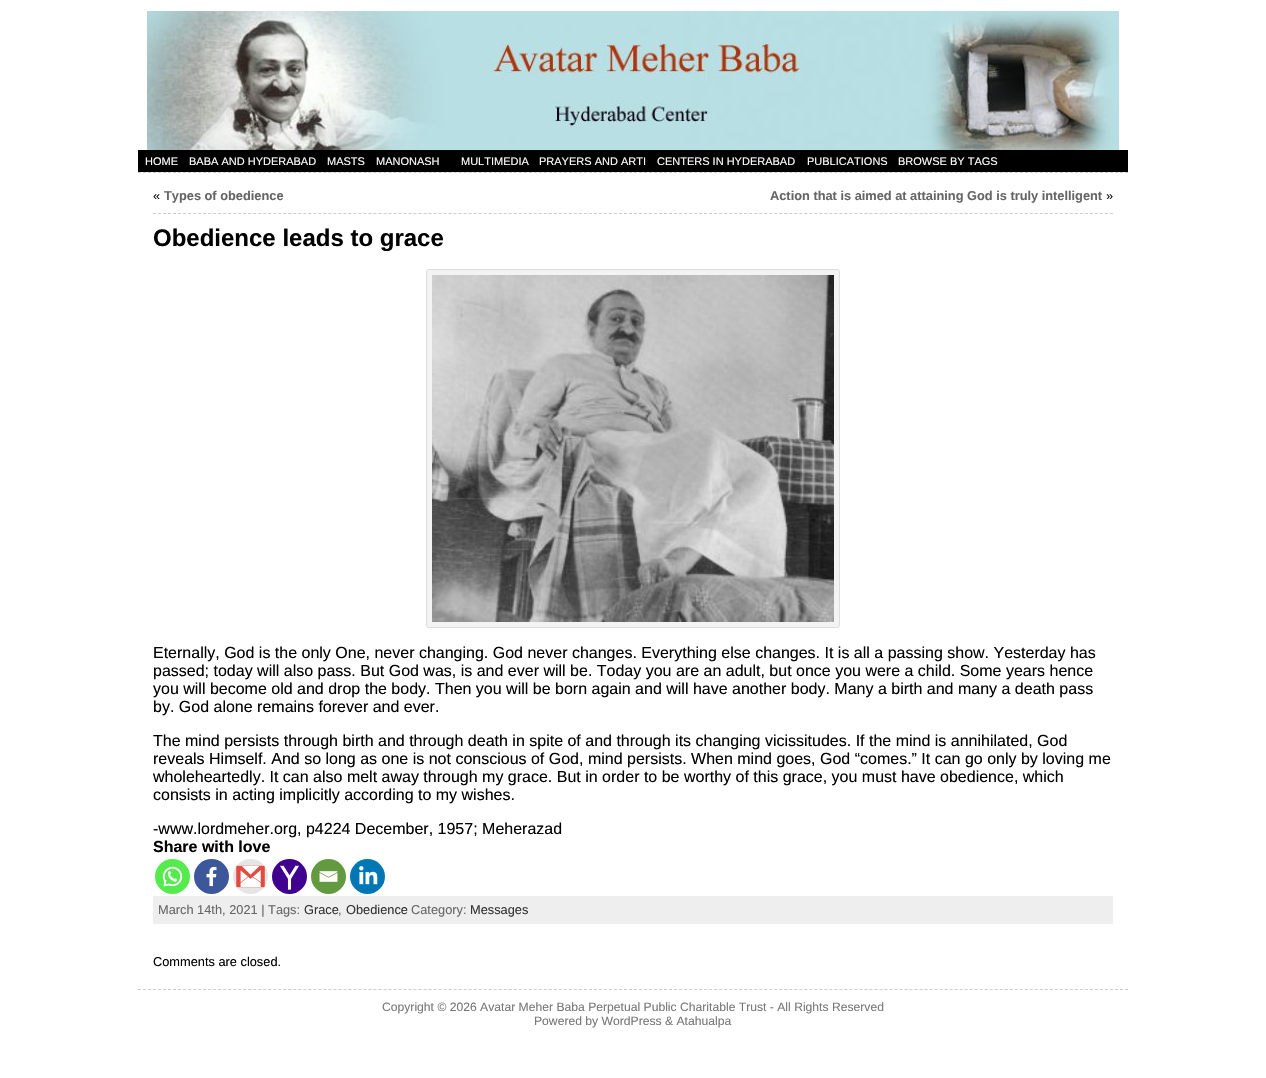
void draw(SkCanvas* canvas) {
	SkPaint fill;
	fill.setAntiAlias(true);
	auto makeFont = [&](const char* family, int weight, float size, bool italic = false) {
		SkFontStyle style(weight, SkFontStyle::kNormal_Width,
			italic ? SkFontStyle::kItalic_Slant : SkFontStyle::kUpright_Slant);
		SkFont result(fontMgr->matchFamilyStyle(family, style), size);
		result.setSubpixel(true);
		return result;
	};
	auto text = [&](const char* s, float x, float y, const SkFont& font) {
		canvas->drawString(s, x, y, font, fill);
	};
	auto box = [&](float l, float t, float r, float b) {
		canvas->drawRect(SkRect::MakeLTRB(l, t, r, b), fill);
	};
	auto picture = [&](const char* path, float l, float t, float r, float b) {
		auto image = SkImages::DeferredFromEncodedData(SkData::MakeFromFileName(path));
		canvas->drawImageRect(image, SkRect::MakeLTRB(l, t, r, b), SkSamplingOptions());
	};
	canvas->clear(0xFFFFFFFF);
	picture("image0.png", 147, 11, 1119, 150);
	fill.setColor(0xFF000000);
	box(138, 150, 1128, 172);
	fill.setStyle(SkPaint::kStroke_Style);
	fill.setStrokeWidth(1);
	fill.setColor(0xFFCCCCCC);
	fill.setPathEffect(SkDashPathEffect::Make({{3, 2.01f}}, 0));
	canvas->drawPath(SkPathBuilder().moveTo(138, 172.5f).lineTo(1128, 172.5f).detach(), fill);
	fill.setPathEffect(nullptr);
	fill.setPathEffect(SkDashPathEffect::Make({{3, 2.01f}}, 0));
	canvas->drawPath(SkPathBuilder().moveTo(153, 213.5f).lineTo(1113, 213.5f).detach(), fill);
	fill.setPathEffect(nullptr);
	fill.setStyle(SkPaint::kFill_Style);
	fill.setColor(0xFFF3F3F3);
	canvas->drawRoundRect(SkRect::MakeLTRB(426.5f, 269.5f, 839.5f, 627.5f), 2.5f, 2.5f, fill);
	fill.setStyle(SkPaint::kStroke_Style);
	fill.setColor(0xFFDDDDDD);
	canvas->drawRoundRect(SkRect::MakeLTRB(426.5f, 269.5f, 839.5f, 627.5f), 2.5f, 2.5f, fill);
	picture("image1.png", 432, 275, 834, 622);
	fill.setStyle(SkPaint::kFill_Style);
	fill.setColor(0xFF55EB4C);
	canvas->drawCircle(172.5f, 876.5f, 17.5f, fill);
	picture("image2.png", 162, 866, 183, 887);
	fill.setColor(0xFF3C589A);
	canvas->drawCircle(211.5f, 876.5f, 17.5f, fill);
	picture("image3.png", 206, 866, 217, 887);
	fill.setColor(0xFFE5E5E5);
	canvas->drawCircle(250.5f, 876.5f, 17.5f, fill);
	picture("image4.png", 236, 865, 265, 888);
	fill.setColor(0xFF400090);
	canvas->drawCircle(289.5f, 876.5f, 17.5f, fill);
	picture("image5.png", 280, 865, 299, 890);
	fill.setColor(0xFF649A3F);
	canvas->drawCircle(328.5f, 876.5f, 17.5f, fill);
	picture("image6.png", 319, 871, 338, 882);
	fill.setColor(0xFF0077B5);
	canvas->drawCircle(367.5f, 876.5f, 17.5f, fill);
	picture("image7.png", 359, 866, 378, 885);
	fill.setColor(0xFFEEEEEE);
	box(153, 896, 1113, 924);
	fill.setStyle(SkPaint::kStroke_Style);
	fill.setColor(0xFFCCCCCC);
	fill.setPathEffect(SkDashPathEffect::Make({{3, 2.01f}}, 0));
	canvas->drawPath(SkPathBuilder().moveTo(138, 989.5f).lineTo(1128, 989.5f).detach(), fill);
	fill.setPathEffect(nullptr);
	auto font1 = makeFont("Liberation Sans", 400, 11);
	fill.setStyle(SkPaint::kFill_Style);
	fill.setColor(0xFFFFFFFF);
	text("HOME", 145, 165, font1);
	text("BABA AND HYDERABAD", 189, 165, font1);
	text("MASTS", 327, 165, font1);
	text("MANONASH", 376, 165, font1);
	text("MULTIMEDIA", 461, 165, font1);
	text("PRAYERS AND ARTI", 539, 165, font1);
	text("CENTERS IN HYDERABAD", 657, 165, font1);
	text("PUBLICATIONS", 807, 165, font1);
	text("BROWSE BY TAGS", 898, 165, font1);
	auto font2 = makeFont("Liberation Sans", 400, 12.8f);
	fill.setColor(0xFF000000);
	text("«", 153, 200, font2);
	auto font3 = makeFont("Liberation Sans", 700, 12.8f);
	fill.setColor(0xFF666666);
	text("Types of obedience", 164, 200, font3);
	text("Action that is aimed at attaining God is truly intelligent", 770, 200, font3);
	fill.setColor(0xFF000000);
	text("»", 1106, 200, font2);
	auto font4 = makeFont("Liberation Sans", 700, 24);
	text("Obedience leads to grace", 153, 246, font4);
	auto font5 = makeFont("Liberation Sans", 400, 16);
	text("Eternally, God is the only One, never changing. God never changes. Everything else changes. It is all a passing show. Yesterday has", 153, 658, font5);
	text("passed; today will also pass. But God was, is and ever will be. Today you are an adult, but once you were a child. Some years hence", 153, 676, font5);
	text("you will become old and drop the body. Then you will be born again and will have another body. Many a birth and many a death pass", 153, 694, font5);
	text("by. God alone remains forever and ever.", 153, 712, font5);
	text("The mind persists through birth and through death in spite of and through its changing vicissitudes. If the mind is annihilated, God", 153, 746, font5);
	text("reveals Himself. And so long as one is not conscious of God, mind persists. When mind goes, God “comes.” It can go only by loving me", 153, 764, font5);
	text("wholeheartedly. It can also melt away through my grace. But in order to be worthy of this grace, you must have obedience, which", 153, 782, font5);
	text("consists in acting implicitly according to my wishes.", 153, 800, font5);
	text("-www.lordmeher.org, p4224 December, 1957; Meherazad", 153, 834, font5);
	auto font6 = makeFont("Liberation Sans", 700, 16);
	text("Share with love", 153, 852, font6);
	fill.setColor(0xFF666666);
	text("March 14th, 2021 | Tags:", 158, 914, font2);
	fill.setColor(0xFF333333);
	text("Grace", 304, 914, font2);
	fill.setColor(0xFF666666);
	text(",", 338, 914, font2);
	fill.setColor(0xFF333333);
	text("Obedience", 346, 914, font2);
	fill.setColor(0xFF666666);
	text("Category:", 411, 914, font2);
	fill.setColor(0xFF333333);
	text("Messages", 470, 914, font2);
	fill.setColor(0xFF000000);
	text("Comments are closed.", 153, 966, font2);
	auto font7 = makeFont("Liberation Sans", 400, 12.15f);
	fill.setColor(0xFF777777);
	text("Copyright © 2026 Avatar Meher Baba Perpetual Public Charitable Trust - All Rights Reserved", 382, 1011, font7);
	text("Powered by WordPress & Atahualpa", 534, 1025, font7);
}
